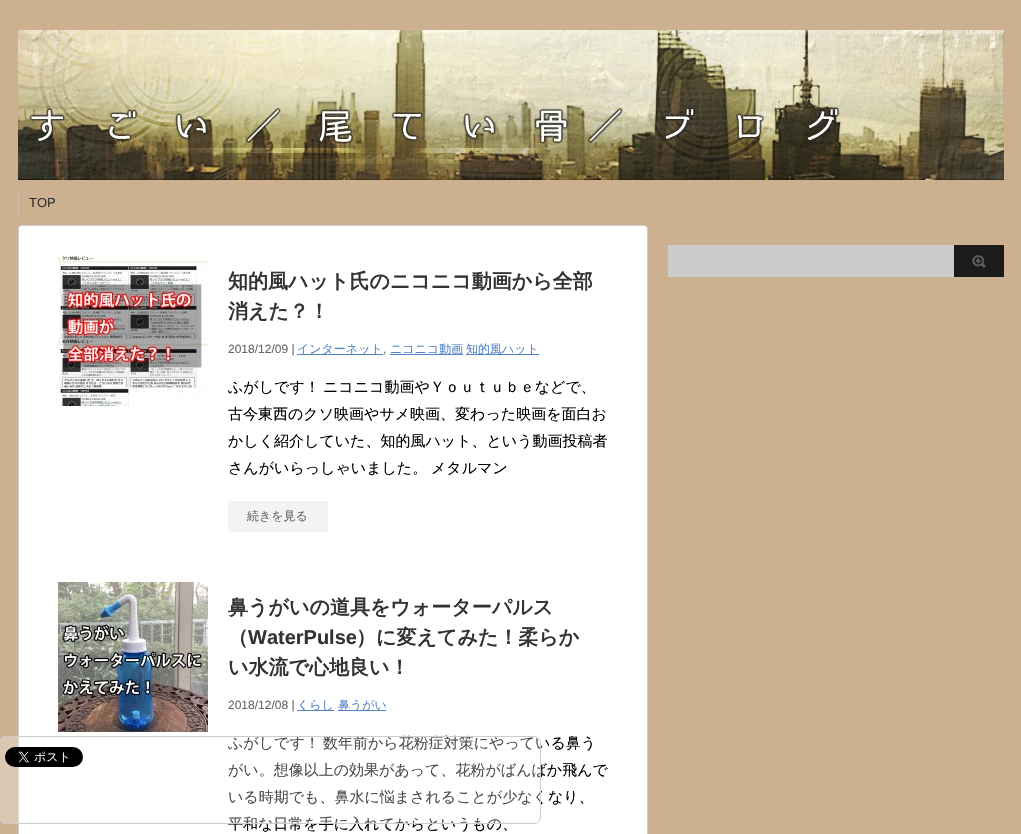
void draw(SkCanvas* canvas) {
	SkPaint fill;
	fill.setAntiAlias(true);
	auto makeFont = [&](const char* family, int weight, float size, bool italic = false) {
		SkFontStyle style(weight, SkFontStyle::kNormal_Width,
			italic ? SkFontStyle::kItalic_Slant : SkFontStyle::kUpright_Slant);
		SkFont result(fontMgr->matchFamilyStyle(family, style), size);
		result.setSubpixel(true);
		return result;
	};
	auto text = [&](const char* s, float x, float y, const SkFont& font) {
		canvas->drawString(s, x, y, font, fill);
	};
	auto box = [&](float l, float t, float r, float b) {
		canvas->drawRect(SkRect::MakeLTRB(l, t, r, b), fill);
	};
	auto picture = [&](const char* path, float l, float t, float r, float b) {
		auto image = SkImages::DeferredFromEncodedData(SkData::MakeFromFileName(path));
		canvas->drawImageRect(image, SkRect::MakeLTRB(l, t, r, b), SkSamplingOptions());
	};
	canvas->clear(0xFFCCB090);
	picture("image0.png", 18, 30, 1004, 180);
	fill.setStyle(SkPaint::kStroke_Style);
	fill.setStrokeWidth(1);
	fill.setColor(0xFFCCCCCC);
	fill.setPathEffect(SkDashPathEffect::Make({{1, 1}}, 0));
	canvas->drawPath(SkPathBuilder().moveTo(18.5f, 190).lineTo(18.5f, 215).detach(), fill);
	fill.setPathEffect(nullptr);
	fill.setStyle(SkPaint::kFill_Style);
	box(668, 245, 954, 277);
	picture("image1.png", 954, 245, 1004, 277);
	fill.setColor(0xFFFFFFFF);
	canvas->drawRoundRect(SkRect::MakeLTRB(18.5f, 225.5f, 647.5f, 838.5f), 3.5f, 3.5f, fill);
	fill.setStyle(SkPaint::kStroke_Style);
	fill.setColor(0xFFCCCCCC);
	canvas->drawRoundRect(SkRect::MakeLTRB(18.5f, 225.5f, 647.5f, 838.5f), 3.5f, 3.5f, fill);
	picture("image2.png", 58, 256, 208, 406);
	fill.setStyle(SkPaint::kFill_Style);
	fill.setColor(0xFF5484C8);
	box(297, 354, 383, 355);
	box(390, 354, 463, 355);
	box(466, 354, 539, 355);
	fill.setColor(0xFFF3F3F3);
	box(228, 501, 328, 532);
	picture("image3.png", 58, 582, 208, 732);
	fill.setColor(0xFF5484C8);
	box(297, 710, 334, 711);
	box(338, 710, 386, 711);
	auto font1 = makeFont("Liberation Sans", 400, 13);
	fill.setColor(0xFF333333);
	text("TOP", 29, 207, font1);
	auto font2 = makeFont("WenQuanYi Zen Hei", 700, 20);
	text("知的風ハット氏のニコニコ動画から全部", 228, 288, font2);
	text("消えた？！", 228, 318, font2);
	auto font3 = makeFont("Liberation Sans", 400, 12);
	fill.setColor(0xFF666666);
	text("2018/12/09 |", 228, 353, font3);
	auto font4 = makeFont("WenQuanYi Zen Hei", 500, 12);
	fill.setColor(0xFF5484C8);
	text("インターネット", 297, 353, font4);
	fill.setColor(0xFF666666);
	text(",", 383, 353, font3);
	fill.setColor(0xFF5484C8);
	text("ニコニコ動画", 390, 353, font4);
	text("知的風ハット", 466, 353, font4);
	auto font5 = makeFont("WenQuanYi Zen Hei", 500, 15);
	fill.setColor(0xFF000000);
	text("ふがしです！", 228, 392, font5);
	text("ニコニコ動画やＹｏｕｔｕｂｅなどで、", 323, 392, font5);
	text("古今東西のクソ映画やサメ映画、変わった映画を面白お", 228, 419, font5);
	text("かしく紹介していた、知的風ハット、という動画投稿者", 228, 446, font5);
	text("さんがいらっしゃいました。", 228, 473, font5);
	text("メタルマン", 431, 473, font5);
	fill.setColor(0xFF666666);
	text("続きを見る", 247, 520, font4);
	fill.setColor(0xFF333333);
	text("鼻うがいの道具をウォーターパルス", 228, 614, font2);
	text("（", 228, 644, font2);
	auto font6 = makeFont("Liberation Sans", 700, 20);
	text("WaterPulse", 248, 644, font6);
	text("）に変えてみた！柔らか", 356, 644, font2);
	text("い水流で心地良い！", 228, 674, font2);
	fill.setColor(0xFF666666);
	text("2018/12/08 |", 228, 709, font3);
	fill.setColor(0xFF5484C8);
	text("くらし", 297, 709, font4);
	text("鼻うがい", 338, 709, font4);
	fill.setColor(0xFF000000);
	text("ふがしです！", 228, 748, font5);
	text("数年前から花粉症対策にやっている鼻う", 323, 748, font5);
	text("がい。想像以上の効果があって、花粉がばんばか飛んで", 228, 775, font5);
	text("いる時期でも、鼻水に悩まされることが少なくなり、", 228, 802, font5);
	text("平和な日常を手に入れてからというもの、", 228, 829, font5);
	picture("image4.png", 0, 736, 541, 824);
	fill.setStyle(SkPaint::kStroke_Style);
	fill.setColor(0xFFCCCCCC);
	canvas->drawRoundRect(SkRect::MakeLTRB(-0.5f, 736.5f, 540.5f, 823.5f), 6.5f, 6.5f, fill);
	picture("image5.png", 5, 747, 83, 767);
}
